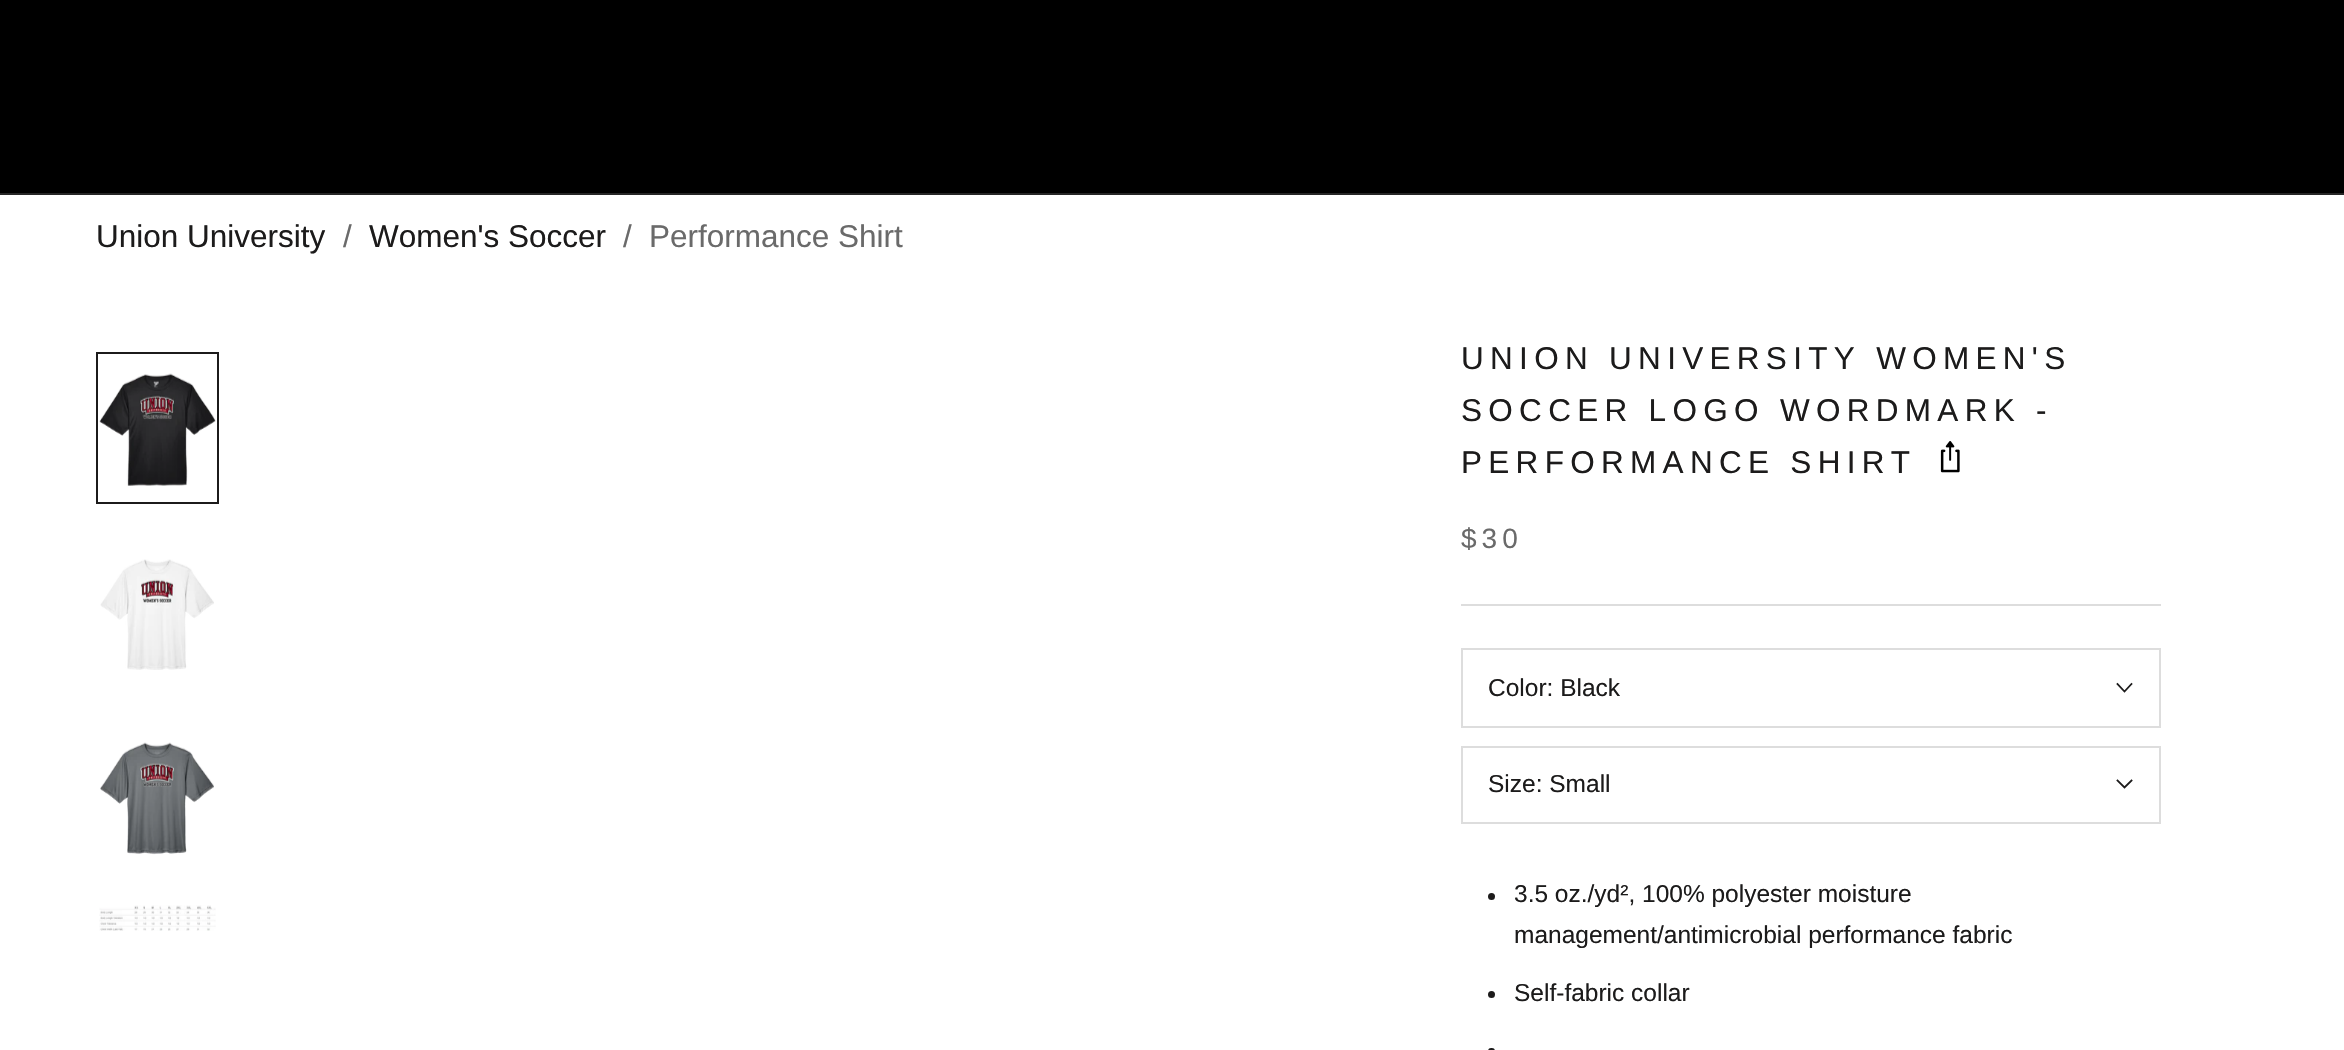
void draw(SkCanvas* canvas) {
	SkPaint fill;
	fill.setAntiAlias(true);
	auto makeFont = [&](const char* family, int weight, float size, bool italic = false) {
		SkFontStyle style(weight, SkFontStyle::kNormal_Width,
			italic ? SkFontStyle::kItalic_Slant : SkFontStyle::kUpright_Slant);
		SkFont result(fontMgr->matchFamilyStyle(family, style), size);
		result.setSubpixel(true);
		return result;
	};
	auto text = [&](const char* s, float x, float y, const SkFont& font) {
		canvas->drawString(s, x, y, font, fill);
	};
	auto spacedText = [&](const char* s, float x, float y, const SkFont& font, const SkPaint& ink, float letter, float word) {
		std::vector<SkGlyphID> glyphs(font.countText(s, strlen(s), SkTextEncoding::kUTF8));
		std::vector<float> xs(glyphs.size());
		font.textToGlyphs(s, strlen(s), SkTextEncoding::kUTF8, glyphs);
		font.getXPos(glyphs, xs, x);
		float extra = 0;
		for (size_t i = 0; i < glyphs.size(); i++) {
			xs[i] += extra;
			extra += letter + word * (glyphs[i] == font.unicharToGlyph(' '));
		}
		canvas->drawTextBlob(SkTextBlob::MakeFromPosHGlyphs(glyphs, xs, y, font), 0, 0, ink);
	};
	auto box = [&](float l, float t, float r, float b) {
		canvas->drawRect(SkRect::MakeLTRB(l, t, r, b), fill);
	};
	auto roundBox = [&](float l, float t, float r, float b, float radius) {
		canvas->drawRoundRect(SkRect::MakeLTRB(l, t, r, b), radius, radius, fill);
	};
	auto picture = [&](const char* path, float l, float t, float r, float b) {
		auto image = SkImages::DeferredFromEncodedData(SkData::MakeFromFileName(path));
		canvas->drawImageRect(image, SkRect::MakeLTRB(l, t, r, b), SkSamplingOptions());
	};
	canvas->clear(0xFFFFFFFF);
	fill.setColor(0xFF000000);
	box(0, 0, 2344, 193);
	fill.setColor(0xFF262626);
	box(0, 193, 2344, 195);
	fill.setStyle(SkPaint::kStroke_Style);
	fill.setStrokeWidth(2);
	fill.setColor(0xFF1C1B1B);
	canvas->drawRect(SkRect::MakeLTRB(97, 353, 218, 503), fill);
	picture("image0.png", 99, 373, 216, 486);
	picture("image1.png", 100, 559, 214, 670);
	picture("image2.png", 100, 742, 214, 855);
	picture("image3.png", 99, 905, 216, 931);
	fill.setStyle(SkPaint::kFill_Style);
	fill.setColor(0xFFDDDDDD);
	box(1461, 604, 2161, 606);
	picture("image4.png", 1940, 441, 1960, 473);
	fill.setStyle(SkPaint::kStroke_Style);
	canvas->drawRect(SkRect::MakeLTRB(1462, 649, 2160, 727), fill);
	fill.setStrokeWidth(1.8f);
	fill.setStrokeCap(SkPaint::kSquare_Cap);
	fill.setColor(0xFF1C1B1B);
	canvas->drawPath(SkPathBuilder().moveTo(2131.5f, 684).lineTo(2124.5f, 691.5f).lineTo(2117.5f, 684).detach(), fill);
	fill.setStrokeWidth(2);
	fill.setStrokeCap(SkPaint::kButt_Cap);
	fill.setColor(0xFFDDDDDD);
	canvas->drawRect(SkRect::MakeLTRB(1462, 747, 2160, 823), fill);
	fill.setStrokeWidth(1.8f);
	fill.setStrokeCap(SkPaint::kSquare_Cap);
	fill.setColor(0xFF1C1B1B);
	canvas->drawPath(SkPathBuilder().moveTo(2131.5f, 780.5f).lineTo(2124.5f, 787.5f).lineTo(2117.5f, 780.5f).detach(), fill);
	fill.setStyle(SkPaint::kFill_Style);
	canvas->drawCircle(1491.5f, 896.5f, 3.5f, fill);
	canvas->drawCircle(1491.5f, 994.5f, 3.5f, fill);
	roundBox(1488, 1048, 1495, 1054, 3.5f);
	auto font1 = makeFont("Liberation Sans", 400, 31.5f);
	text("Union University", 96, 247, font1);
	fill.setColor(0xFF6A6A6A);
	text("/", 343, 247, font1);
	fill.setColor(0xFF1C1B1B);
	text("Women's Soccer", 369, 247, font1);
	fill.setColor(0xFF6A6A6A);
	text("/", 623, 247, font1);
	text("Performance Shirt", 649, 247, font1);
	fill.setColor(0xFF1C1B1B);
	spacedText("UNION UNIVERSITY WOMEN'S", 1461, 369, font1, fill, 6.3f, 0);
	spacedText("SOCCER LOGO WORDMARK -", 1461, 421, font1, fill, 6.3f, 0);
	spacedText("PERFORMANCE SHIRT", 1461, 473, font1, fill, 6.3f, 0);
	auto font2 = makeFont("Liberation Sans", 400, 28);
	fill.setColor(0xFF6A6A6A);
	spacedText("$30", 1461, 548, font2, fill, 5, 0);
	auto font3 = makeFont("Liberation Sans", 400, 24.5f);
	fill.setColor(0xFF1C1B1B);
	text("Color: Black", 1488, 696, font3);
	text("Size: Small", 1488, 792, font3);
	text("3.5 oz./yd², 100% polyester moisture", 1514, 902, font3);
	text("management/antimicrobial performance fabric", 1514, 943, font3);
	text("Self-fabric collar", 1514, 1001, font3);
}
